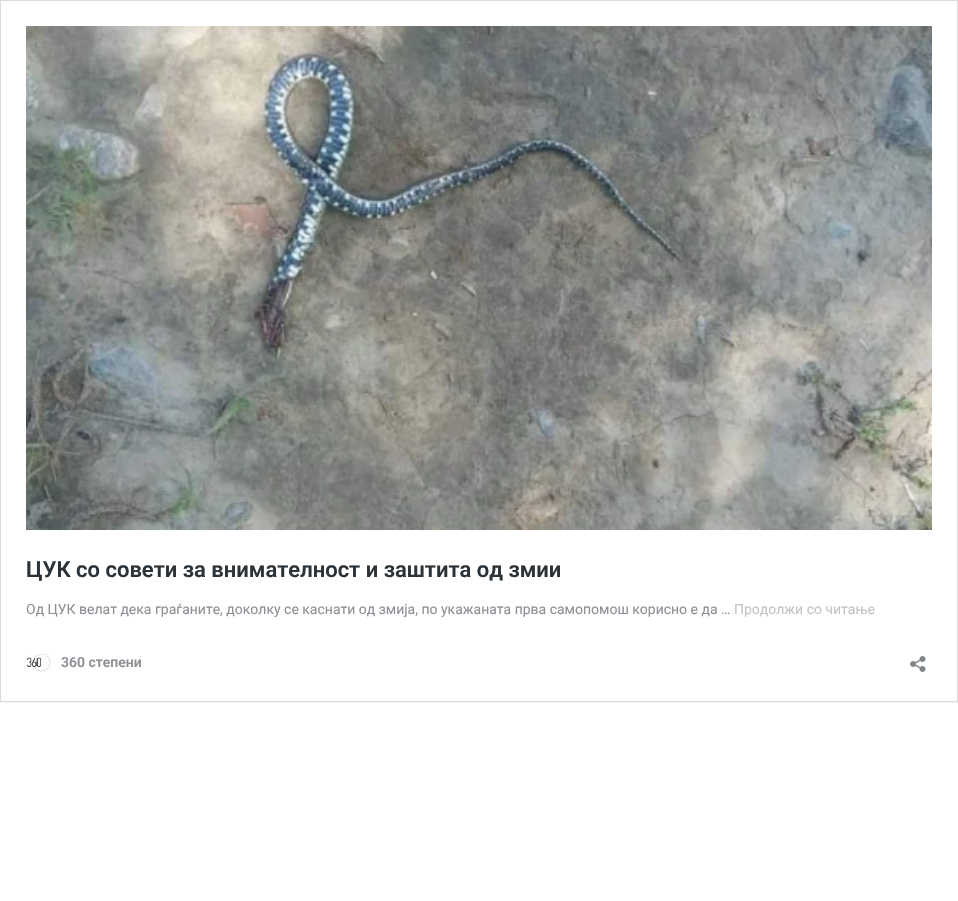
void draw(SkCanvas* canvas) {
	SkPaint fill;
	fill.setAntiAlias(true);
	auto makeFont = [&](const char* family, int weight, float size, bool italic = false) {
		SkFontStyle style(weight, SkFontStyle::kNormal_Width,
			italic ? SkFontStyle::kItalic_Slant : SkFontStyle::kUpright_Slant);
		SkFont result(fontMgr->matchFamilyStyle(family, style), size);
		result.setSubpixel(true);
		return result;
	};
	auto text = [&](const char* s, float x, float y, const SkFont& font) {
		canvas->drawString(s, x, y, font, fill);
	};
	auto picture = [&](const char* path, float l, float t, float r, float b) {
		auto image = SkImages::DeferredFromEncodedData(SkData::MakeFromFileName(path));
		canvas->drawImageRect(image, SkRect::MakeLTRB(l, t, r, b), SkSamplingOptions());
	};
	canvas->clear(0xFFFFFFFF);
	canvas->save();
	canvas->clipRect(SkRect::MakeLTRB(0, 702, 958, 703));
	fill.setColor(0x0D000000);
	fill.setMaskFilter(SkMaskFilter::MakeBlur(kNormal_SkBlurStyle, 0.5f));
	canvas->drawRect(SkRect::MakeLTRB(0, 1, 958, 703), fill);
	fill.setMaskFilter(nullptr);
	canvas->restore();
	fill.setStyle(SkPaint::kStroke_Style);
	fill.setStrokeWidth(1);
	fill.setColor(0xFFDCDCDE);
	canvas->drawRect(SkRect::MakeLTRB(0.5f, 0.5f, 957.5f, 701.5f), fill);
	picture("image0.png", 26, 26, 932, 530);
	picture("image1.png", 26, 654, 51, 672);
	picture("image2.png", 910, 656, 926, 672);
	auto font1 = makeFont("Roboto", 600, 22);
	fill.setStyle(SkPaint::kFill_Style);
	fill.setColor(0xFF2C3338);
	text("ЦУК со совети за внимателност и заштита од змии", 26, 577, font1);
	auto font2 = makeFont("Roboto", 400, 14);
	fill.setColor(0xFF8C8F94);
	text("Од ЦУК велат дека граѓаните, доколку се каснати од змија, по укажаната прва самопомош корисно е да …", 26, 614, font2);
	fill.setColor(0xFFC3C4C7);
	text("Продолжи со читање", 734, 614, font2);
	auto font3 = makeFont("Roboto", 600, 14);
	fill.setColor(0xFF8C8F94);
	text("360 степени", 61, 667, font3);
}
